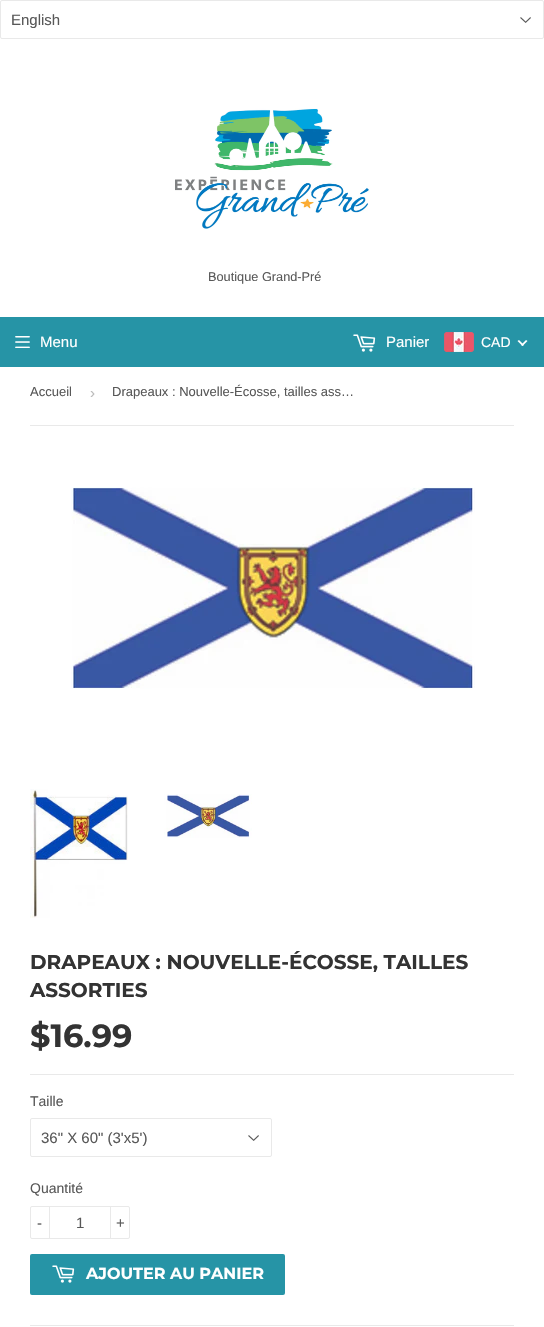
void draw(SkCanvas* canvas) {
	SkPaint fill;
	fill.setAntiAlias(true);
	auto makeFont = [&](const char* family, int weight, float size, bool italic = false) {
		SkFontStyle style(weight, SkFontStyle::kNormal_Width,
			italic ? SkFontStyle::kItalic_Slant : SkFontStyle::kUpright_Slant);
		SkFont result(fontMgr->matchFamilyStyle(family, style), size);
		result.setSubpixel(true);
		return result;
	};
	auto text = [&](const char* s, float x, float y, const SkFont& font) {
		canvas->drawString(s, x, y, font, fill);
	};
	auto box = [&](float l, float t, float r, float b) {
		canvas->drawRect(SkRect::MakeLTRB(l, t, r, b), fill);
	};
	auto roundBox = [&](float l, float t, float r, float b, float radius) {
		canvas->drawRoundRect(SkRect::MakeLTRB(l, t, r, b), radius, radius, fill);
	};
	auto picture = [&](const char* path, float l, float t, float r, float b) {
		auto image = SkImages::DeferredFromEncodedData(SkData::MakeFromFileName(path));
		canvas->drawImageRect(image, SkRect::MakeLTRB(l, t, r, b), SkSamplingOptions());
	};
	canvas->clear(0xFFFFFFFF);
	picture("image0.png", 520, 17, 531, 23);
	fill.setStyle(SkPaint::kStroke_Style);
	fill.setStrokeWidth(1);
	fill.setColor(0xFFE9E9E9);
	canvas->drawRoundRect(SkRect::MakeLTRB(0.5f, 0.5f, 543.5f, 38.5f), 1.5f, 1.5f, fill);
	picture("image1.png", 175, 108, 370, 229);
	fill.setStyle(SkPaint::kFill_Style);
	fill.setColor(0xFF2694A6);
	box(0, 317, 544, 367);
	picture("image2.png", 15, 336, 30, 348);
	picture("image3.png", 353, 334, 376, 352);
	picture("image4.png", 444, 332, 474, 352);
	fill.setColor(0xFFFFFFFF);
	canvas->drawPath(SkPathBuilder().moveTo(526, 340).lineTo(527.5f, 341).lineTo(522.5f, 346).lineTo(521, 345).close().detach(), fill);
	canvas->drawPath(SkPathBuilder().moveTo(519, 340).lineTo(524, 345).lineTo(522.5f, 346).lineTo(517.5f, 341).close().detach(), fill);
	fill.setColor(0xFFE9E9E9);
	box(30, 425, 514, 426);
	picture("image5.png", 71, 487, 475, 689);
	picture("image6.png", 30, 789, 128, 918);
	picture("image7.png", 164, 794, 252, 838);
	box(30, 1074, 514, 1075);
	picture("image0.png", 248, 1135, 259, 1141);
	fill.setStyle(SkPaint::kStroke_Style);
	canvas->drawRoundRect(SkRect::MakeLTRB(30.5f, 1118.5f, 271.5f, 1156.5f), 1.5f, 1.5f, fill);
	canvas->drawRoundRect(SkRect::MakeLTRB(30.5f, 1206.5f, 129.5f, 1238.5f), 1.5f, 1.5f, fill);
	fill.setStyle(SkPaint::kFill_Style);
	box(49, 1206, 50, 1239);
	box(110, 1206, 111, 1239);
	fill.setColor(0xFF2694A6);
	roundBox(30, 1254, 285, 1295, 2);
	picture("image3.png", 52, 1265, 75, 1283);
	fill.setColor(0xFFE9E9E9);
	box(30, 1325, 514, 1326);
	auto font1 = makeFont("Liberation Sans", 400, 15);
	fill.setColor(0xFF585858);
	text("English", 11, 25, font1);
	auto font2 = makeFont("Liberation Sans", 400, 12.75f);
	text("Boutique Grand-Pré", 208, 281, font2);
	fill.setColor(0xFFFFFFFF);
	text("Menu", 40, 347, font1);
	text("Panier", 386, 347, font1);
	auto font3 = makeFont("Liberation Sans", 400, 14);
	text("CAD", 481, 347, font3);
	auto font4 = makeFont("Liberation Sans", 400, 13);
	fill.setColor(0xFF585858);
	text("Accueil", 30, 396, font4);
	fill.setColor(0xFFBBBBBB);
	text("›", 90, 398, font1);
	fill.setColor(0xFF585858);
	text("Drapeaux : Nouvelle-Écosse, tailles ass…", 112, 396, font4);
	auto font5 = makeFont("Montserrat", 100, 20);
	fill.setColor(0xFF333333);
	text("DRAPEAUX : NOUVELLE-ÉCOSSE, TAILLES", 30, 969, font5);
	text("ASSORTIES", 30, 997, font5);
	auto font6 = makeFont("Montserrat", 100, 32);
	text("$16.99", 30, 1047, font6);
	fill.setColor(0xFF585858);
	text("Taille", 30, 1106, font3);
	text("36\" X 60\" (3'x5')", 41, 1143, font1);
	text("Quantité", 30, 1193, font3);
	text("-", 37, 1228, font1);
	text("1", 76, 1228, font1);
	text("+", 116, 1228, font1);
	auto font7 = makeFont("Montserrat", 100, 16);
	fill.setColor(0xFFFFFFFF);
	text("AJOUTER AU PANIER", 86, 1279, font7);
}
